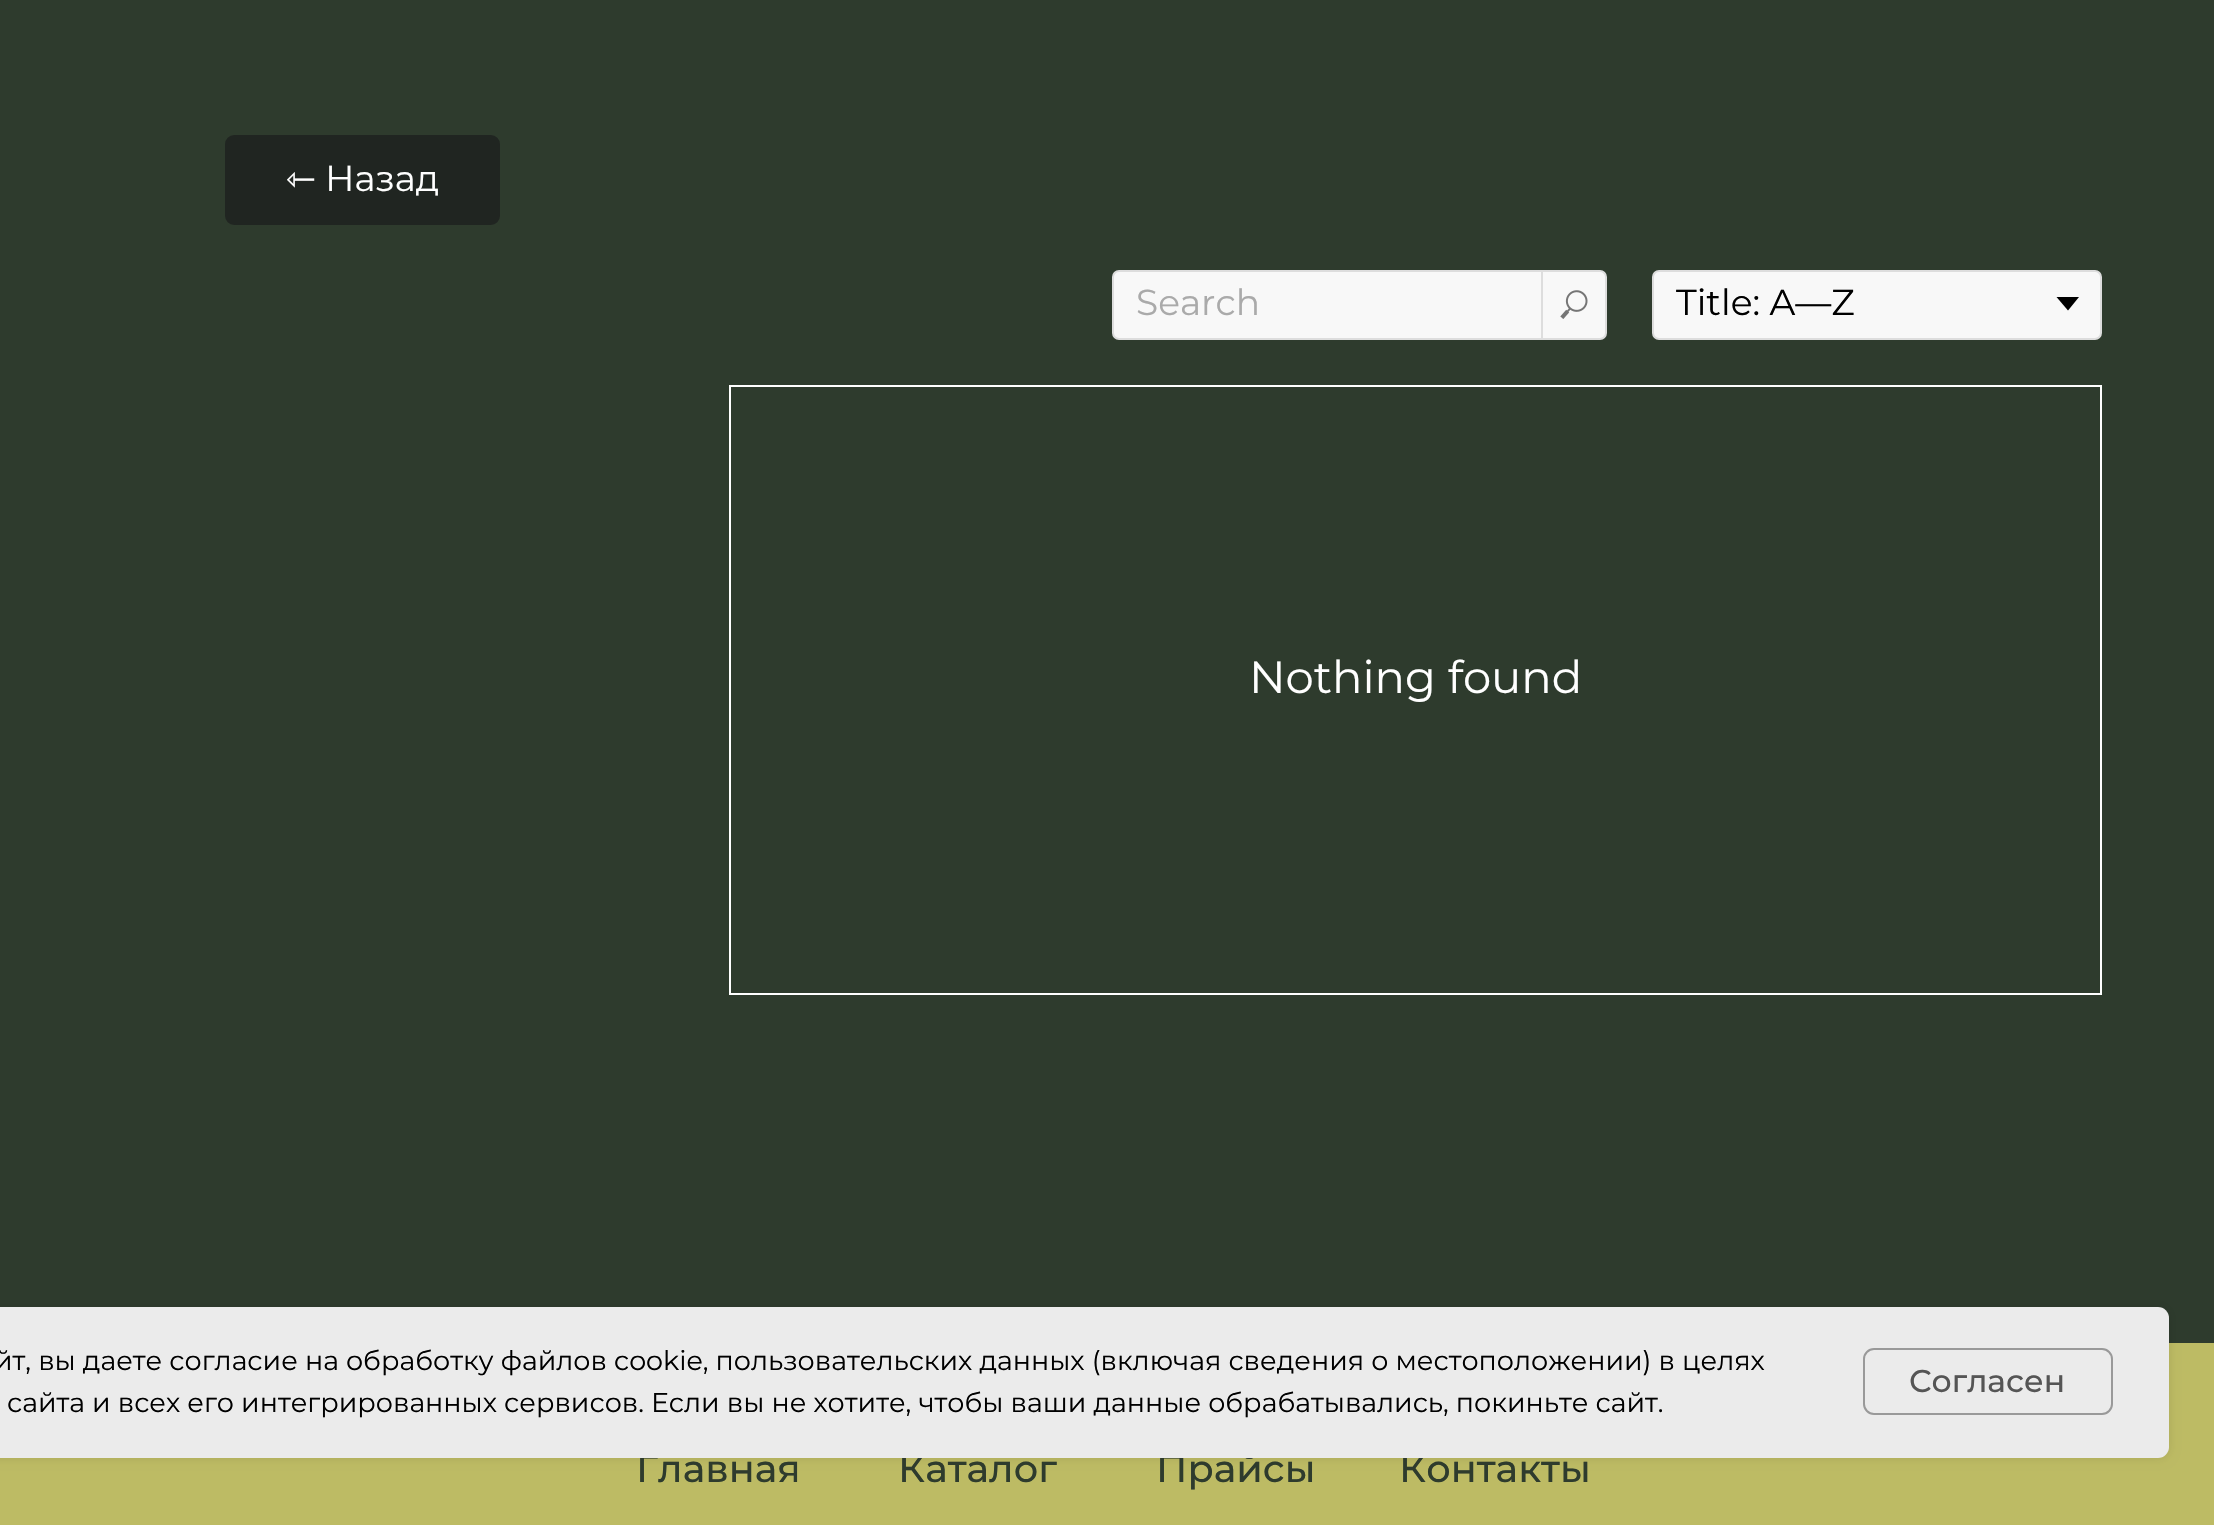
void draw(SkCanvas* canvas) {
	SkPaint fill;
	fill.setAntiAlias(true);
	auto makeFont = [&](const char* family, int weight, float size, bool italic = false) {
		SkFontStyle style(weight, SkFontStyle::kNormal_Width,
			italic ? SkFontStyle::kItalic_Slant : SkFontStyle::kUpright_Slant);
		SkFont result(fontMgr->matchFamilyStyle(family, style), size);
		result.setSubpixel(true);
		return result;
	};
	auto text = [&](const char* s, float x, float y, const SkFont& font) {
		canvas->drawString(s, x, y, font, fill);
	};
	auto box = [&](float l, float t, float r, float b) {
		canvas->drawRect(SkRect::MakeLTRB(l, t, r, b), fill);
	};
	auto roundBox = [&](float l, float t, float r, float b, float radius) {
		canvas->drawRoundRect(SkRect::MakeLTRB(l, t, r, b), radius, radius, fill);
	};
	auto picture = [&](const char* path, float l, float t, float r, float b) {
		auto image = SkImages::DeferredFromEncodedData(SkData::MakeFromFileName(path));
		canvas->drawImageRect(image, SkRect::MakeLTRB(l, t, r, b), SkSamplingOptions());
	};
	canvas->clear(0xFF2E3B2D);
	fill.setColor(0xFF202521);
	canvas->drawRoundRect(SkRect::MakeLTRB(227.5f, 137.5f, 497.5f, 222.5f), 6.5f, 6.5f, fill);
	fill.setStyle(SkPaint::kStroke_Style);
	fill.setStrokeWidth(5);
	canvas->drawRoundRect(SkRect::MakeLTRB(227.5f, 137.5f, 497.5f, 222.5f), 6.5f, 6.5f, fill);
	fill.setStyle(SkPaint::kFill_Style);
	fill.setColor(0xFFF8F8F8);
	canvas->drawRoundRect(SkRect::MakeLTRB(1113, 271, 1606, 339), 6, 6, fill);
	fill.setStyle(SkPaint::kStroke_Style);
	fill.setStrokeWidth(2);
	fill.setColor(0xFFDDDDDD);
	canvas->drawRoundRect(SkRect::MakeLTRB(1113, 271, 1606, 339), 6, 6, fill);
	fill.setStyle(SkPaint::kFill_Style);
	box(1541, 270, 1543, 340);
	picture("image0.png", 1560, 290, 1588, 319);
	fill.setColor(0xFFF8F8F8);
	canvas->drawRoundRect(SkRect::MakeLTRB(1653, 271, 2101, 339), 6, 6, fill);
	fill.setStyle(SkPaint::kStroke_Style);
	fill.setColor(0xFFDDDDDD);
	canvas->drawRoundRect(SkRect::MakeLTRB(1653, 271, 2101, 339), 6, 6, fill);
	fill.setStyle(SkPaint::kFill_Style);
	fill.setColor(0xFF000000);
	canvas->drawPath(SkPathBuilder().moveTo(2056.5f, 297).lineTo(2079, 297).lineTo(2068, 310.5f).close().detach(), fill);
	fill.setStyle(SkPaint::kStroke_Style);
	fill.setColor(0xFFFFFFFF);
	canvas->drawRect(SkRect::MakeLTRB(730, 386, 2101, 994), fill);
	fill.setStyle(SkPaint::kFill_Style);
	fill.setColor(0xFFBDBB64);
	box(0, 1343, 2214, 1525);
	fill.setColor(0x1A000000);
	fill.setMaskFilter(SkMaskFilter::MakeBlur(kNormal_SkBlurStyle, 5.5f));
	canvas->drawRoundRect(SkRect::MakeLTRB(-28, 1307, 2169, 1458), 11, 11, fill);
	fill.setMaskFilter(nullptr);
	auto font1 = makeFont("DejaVu Sans", 400, 36);
	fill.setColor(0xFFFFFFFF);
	text("⇽", 286, 191, font1);
	auto font2 = makeFont("Montserrat", 400, 36);
	text("Назад", 325, 191, font2);
	fill.setColor(0xFFAAAAAA);
	text("Search", 1136, 315, font2);
	fill.setColor(0xFF000000);
	text("Title: A—Z", 1676, 315, font2);
	auto font3 = makeFont("Montserrat", 400, 45);
	fill.setColor(0xFFFFFFFF);
	text("Nothing found", 1249, 693, font3);
	auto font4 = makeFont("Montserrat", 500, 38.25f);
	fill.setColor(0xFF2E3B2D);
	text("Главная", 636, 1482, font4);
	text("Каталог", 898, 1482, font4);
	text("Прайсы", 1156, 1482, font4);
	text("Контакты", 1399, 1482, font4);
	fill.setColor(0xFFEBEBEB);
	roundBox(-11, 1307, 2169, 1458, 11);
	fill.setStyle(SkPaint::kStroke_Style);
	fill.setColor(0xFF999999);
	canvas->drawRoundRect(SkRect::MakeLTRB(1864, 1349, 2112, 1414), 10, 10, fill);
	auto font5 = makeFont("Montserrat", 500, 31.5f);
	fill.setStyle(SkPaint::kFill_Style);
	fill.setColor(0xFF555555);
	text("Согласен", 1909, 1392, font5);
	auto font6 = makeFont("Montserrat", 400, 27);
	fill.setColor(0xFF000000);
	text("сайта и всех его интегрированных сервисов. Если вы не хотите, чтобы ваши данные обрабатывались, покиньте сайт.", 7, 1412, font6);
	text("йт, вы даете согласие на обработку файлов cookie, пользовательских данных (включая сведения о местоположении) в целях", -6, 1370, font6);
}
